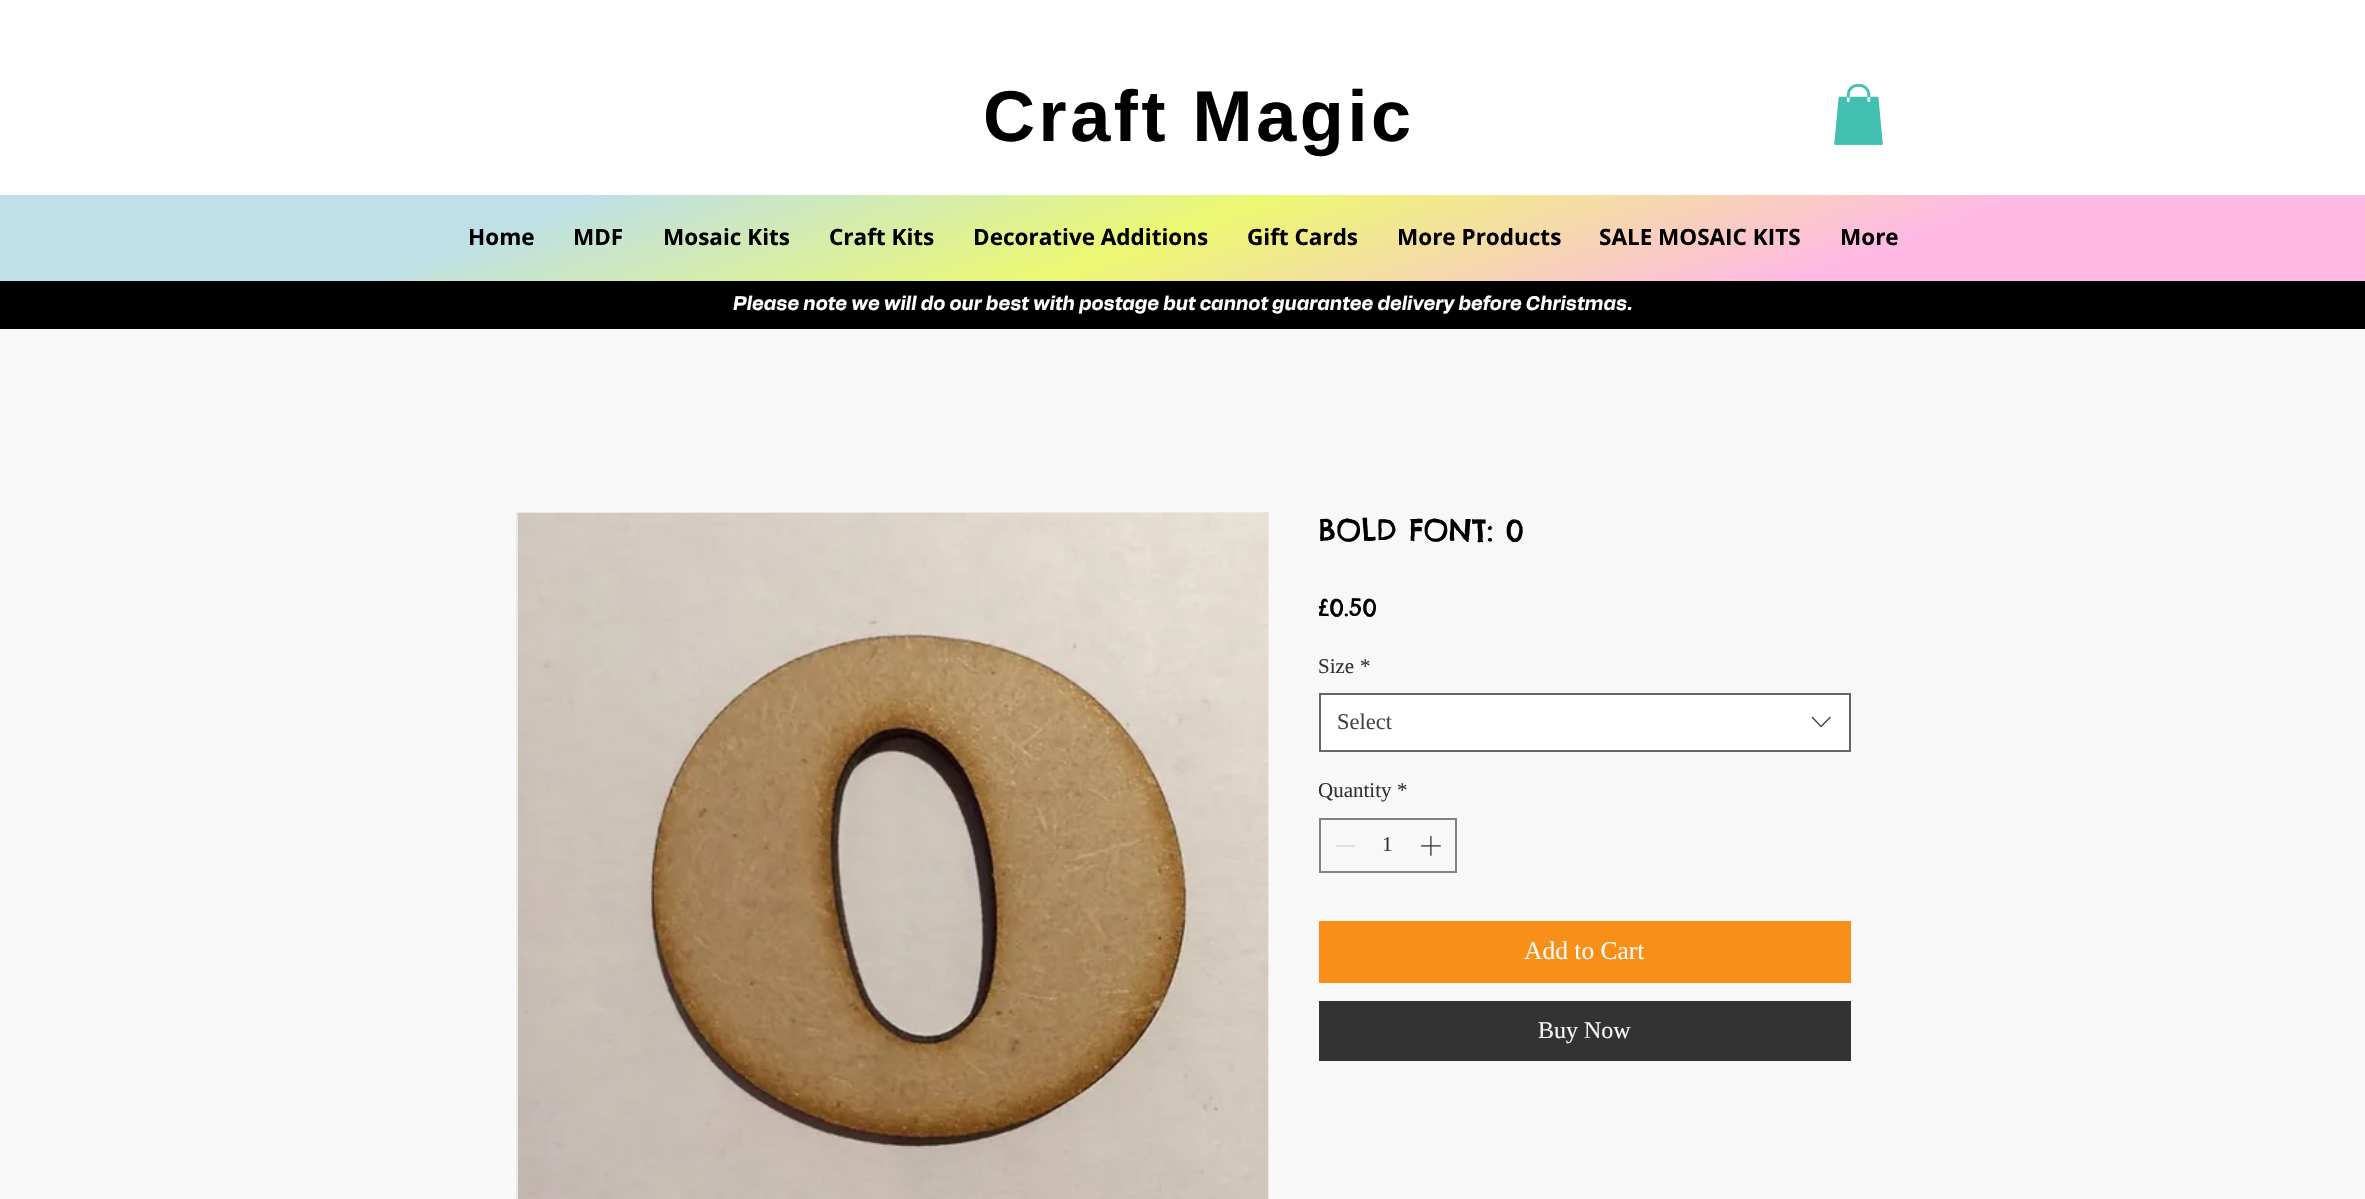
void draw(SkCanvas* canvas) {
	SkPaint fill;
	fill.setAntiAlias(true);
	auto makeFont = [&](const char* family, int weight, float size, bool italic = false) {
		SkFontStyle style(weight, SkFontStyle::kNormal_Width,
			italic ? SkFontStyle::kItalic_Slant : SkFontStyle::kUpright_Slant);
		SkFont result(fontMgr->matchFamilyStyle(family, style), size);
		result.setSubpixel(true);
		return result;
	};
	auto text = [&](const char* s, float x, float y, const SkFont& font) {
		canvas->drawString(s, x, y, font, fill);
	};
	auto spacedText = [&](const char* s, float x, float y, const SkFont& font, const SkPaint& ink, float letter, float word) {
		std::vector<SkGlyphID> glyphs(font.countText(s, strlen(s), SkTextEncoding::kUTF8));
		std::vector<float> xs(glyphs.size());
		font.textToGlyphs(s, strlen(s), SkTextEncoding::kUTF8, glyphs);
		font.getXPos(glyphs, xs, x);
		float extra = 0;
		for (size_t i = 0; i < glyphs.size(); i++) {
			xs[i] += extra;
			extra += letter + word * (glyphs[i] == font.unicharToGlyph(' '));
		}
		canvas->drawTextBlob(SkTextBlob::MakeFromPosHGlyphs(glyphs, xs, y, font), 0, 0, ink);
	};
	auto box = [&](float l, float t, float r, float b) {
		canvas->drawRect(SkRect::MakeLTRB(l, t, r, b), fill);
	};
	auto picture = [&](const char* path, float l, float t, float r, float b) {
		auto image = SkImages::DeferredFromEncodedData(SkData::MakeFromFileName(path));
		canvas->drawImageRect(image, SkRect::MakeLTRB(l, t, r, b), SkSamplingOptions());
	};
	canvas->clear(0xFFF8F8F8);
	fill.setColor(0xFFFFFFFF);
	box(0, 0, 2365, 195);
	picture("image0.png", 1834, 84, 1883, 145);
	{
		const SkColor colors[] = {0xFFFFB9E5, 0xFFECF872, 0xFFBEE0E6};
		const float stops[] = {0.22f, 0.51f, 0.77f};
		const SkPoint ends[] = {{1335, 656}, {1031, -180}};
		fill.setShader(SkGradientShader::MakeLinear(ends, colors, stops, 3, SkTileMode::kClamp));
		fill.setAlpha(255);
	}
	box(0, 195, 2365, 281);
	fill.setShader(nullptr);
	fill.setColor(0xFF000000);
	box(0, 281, 2365, 329);
	fill.setStyle(SkPaint::kStroke_Style);
	fill.setStrokeWidth(2);
	fill.setColor(0xFFE8E8E8);
	canvas->drawRect(SkRect::MakeLTRB(517, 513, 1268, 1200), fill);
	picture("image1.png", 518, 513, 1268, 1199);
	fill.setStyle(SkPaint::kFill_Style);
	fill.setColor(0xFFFFFFFF);
	canvas->drawRect(SkRect::MakeLTRB(1320, 694, 1850, 751), fill);
	fill.setStyle(SkPaint::kStroke_Style);
	fill.setColor(0xFF666666);
	canvas->drawRect(SkRect::MakeLTRB(1320, 694, 1850, 751), fill);
	fill.setStyle(SkPaint::kFill_Style);
	fill.setColor(0xFF444444);
	canvas->drawPath(SkPathBuilder(SkPathFillType::kEvenOdd).moveTo(1830, 716.5f).lineTo(1831, 717.5f).lineTo(1821, 727.5f).lineTo(1811.5f, 717.5f).lineTo(1812.5f, 716.5f).lineTo(1821, 725.5f).close().detach(), fill);
	fill.setStyle(SkPaint::kStroke_Style);
	fill.setColor(0xFF828282);
	canvas->drawRect(SkRect::MakeLTRB(1320, 819, 1456, 872), fill);
	fill.setStyle(SkPaint::kFill_Style);
	fill.setColor(0xFFE0E0E0);
	box(1336, 845, 1355, 847);
	picture("image2.png", 1421, 836, 1441, 856);
	fill.setColor(0xFFF78F19);
	box(1319, 921, 1851, 983);
	fill.setColor(0xFF333333);
	box(1319, 1001, 1851, 1061);
	auto font1 = makeFont("Liberation Sans", 700, 72);
	fill.setColor(0xFF000000);
	spacedText("Craft Magic", 983, 141, font1, fill, 3.6f, 0);
	auto font2 = makeFont("Open Sans", 700, 22.5f);
	text("Home", 468, 245, font2);
	text("MDF", 573, 245, font2);
	text("Mosaic Kits", 663, 245, font2);
	text("Craft Kits", 829, 245, font2);
	text("Decorative Additions", 973, 245, font2);
	text("Gift Cards", 1247, 245, font2);
	text("More Products", 1397, 245, font2);
	text("SALE MOSAIC KITS", 1599, 245, font2);
	text("More", 1840, 245, font2);
	auto font3 = makeFont("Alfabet", 700, 19.5f, true);
	fill.setColor(0xFFFFFFFF);
	text("Please note we will do our best with postage but cannot guarantee delivery before Christmas.", 733, 310, font3);
	auto font4 = makeFont("Chelsea Market", 400, 30);
	fill.setColor(0xFF000000);
	text("BOLD FONT: 0", 1318, 541, font4);
	auto font5 = makeFont("Chelsea Market", 400, 24);
	text("£0.50", 1318, 616, font5);
	auto font6 = makeFont("Liberation Serif", 400, 21);
	fill.setColor(0xFF333333);
	text("Size", 1318, 673, font6);
	text("*", 1360, 673, font6);
	auto font7 = makeFont("Liberation Serif", 400, 22.5f);
	fill.setColor(0xFF444444);
	text("Select", 1337, 729, font7);
	fill.setColor(0xFF333333);
	text("Quantity", 1318, 797, font6);
	text("*", 1397, 797, font6);
	text("1", 1382, 851, font6);
	auto font8 = makeFont("Liberation Serif", 400, 25.5f);
	fill.setColor(0xFFF8F8F8);
	text("Add to Cart", 1524, 959, font8);
	auto font9 = makeFont("Liberation Serif", 400, 24);
	text("Buy Now", 1538, 1038, font9);
}
